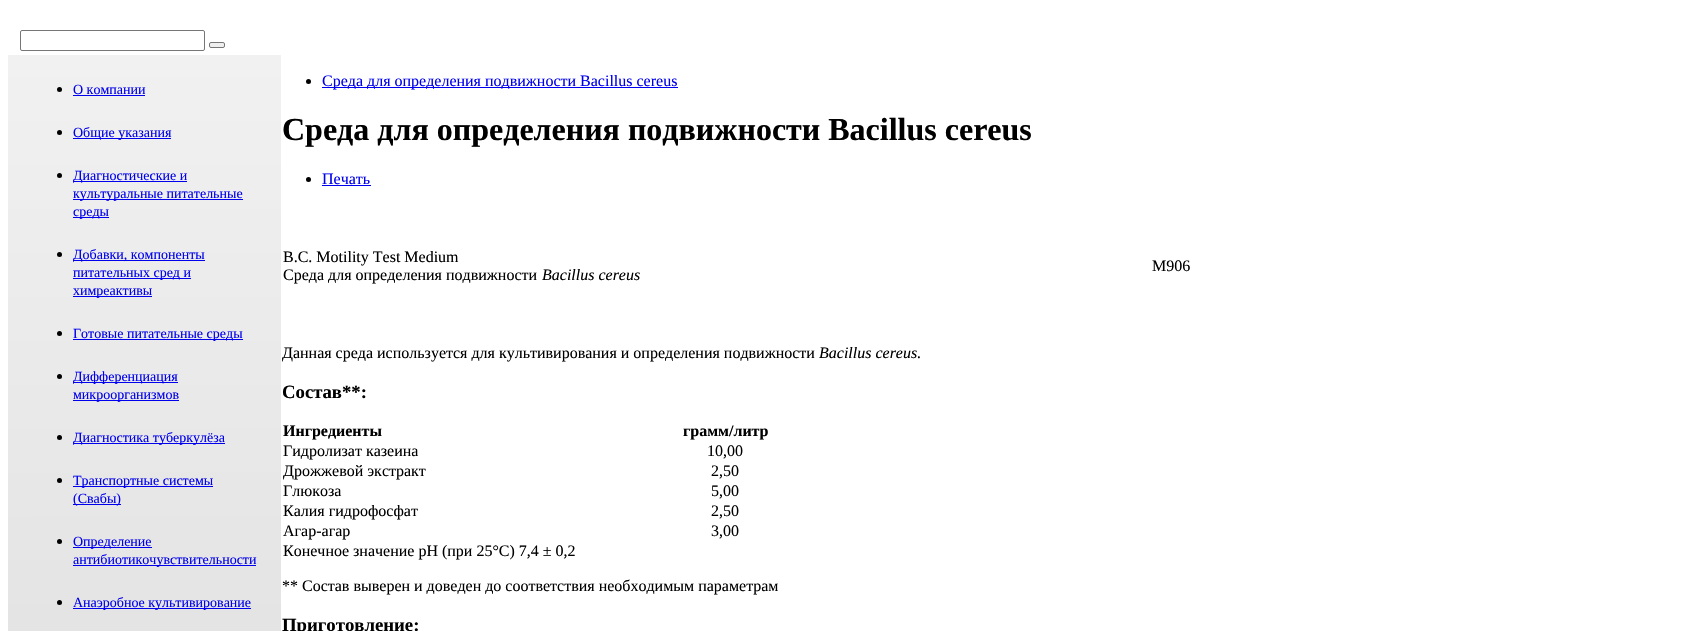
void draw(SkCanvas* canvas) {
	SkPaint fill;
	fill.setAntiAlias(true);
	auto makeFont = [&](const char* family, int weight, float size, bool italic = false) {
		SkFontStyle style(weight, SkFontStyle::kNormal_Width,
			italic ? SkFontStyle::kItalic_Slant : SkFontStyle::kUpright_Slant);
		SkFont result(fontMgr->matchFamilyStyle(family, style), size);
		result.setSubpixel(true);
		return result;
	};
	auto text = [&](const char* s, float x, float y, const SkFont& font) {
		canvas->drawString(s, x, y, font, fill);
	};
	auto box = [&](float l, float t, float r, float b) {
		canvas->drawRect(SkRect::MakeLTRB(l, t, r, b), fill);
	};
	canvas->clear(0xFFFFFFFF);
	fill.setStyle(SkPaint::kStroke_Style);
	fill.setStrokeWidth(1);
	fill.setColor(0xFF767676);
	canvas->drawRoundRect(SkRect::MakeLTRB(20.5f, 30.5f, 204.5f, 50.5f), 1.5f, 1.5f, fill);
	fill.setStyle(SkPaint::kFill_Style);
	fill.setColor(0xFFEFEFEF);
	canvas->drawRoundRect(SkRect::MakeLTRB(209.5f, 42.5f, 224.5f, 47.5f), 1.5f, 1.5f, fill);
	fill.setStyle(SkPaint::kStroke_Style);
	fill.setColor(0xFF767676);
	canvas->drawRoundRect(SkRect::MakeLTRB(209.5f, 42.5f, 224.5f, 47.5f), 1.5f, 1.5f, fill);
	fill.setStyle(SkPaint::kFill_Style);
	{
		const SkColor colors[] = {0xFFF1F1F1, 0xFFCCCCCC};
		const float stops[] = {0, 1};
		const SkPoint ends[] = {{144, 55}, {145, 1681}};
		fill.setShader(SkGradientShader::MakeLinear(ends, colors, stops, 2, SkTileMode::kClamp));
		fill.setAlpha(255);
	}
	box(8, 55, 281, 631);
	fill.setShader(nullptr);
	fill.setColor(0xFF000000);
	canvas->drawCircle(59.5f, 89.5f, 2.5f, fill);
	fill.setColor(0xFF0000EE);
	box(73, 95, 145, 96);
	fill.setColor(0xFF000000);
	canvas->drawCircle(59.5f, 132.5f, 2.5f, fill);
	fill.setColor(0xFF0000EE);
	box(73, 138, 171, 139);
	fill.setColor(0xFF000000);
	canvas->drawCircle(59.5f, 175.5f, 2.5f, fill);
	fill.setColor(0xFF0000EE);
	box(73, 181, 187, 182);
	box(73, 199, 243, 200);
	box(73, 217, 109, 218);
	fill.setColor(0xFF000000);
	canvas->drawCircle(59.5f, 254.5f, 2.5f, fill);
	fill.setColor(0xFF0000EE);
	box(73, 260, 205, 261);
	box(73, 278, 191, 279);
	box(73, 296, 152, 297);
	fill.setColor(0xFF000000);
	canvas->drawCircle(59.5f, 333.5f, 2.5f, fill);
	fill.setColor(0xFF0000EE);
	box(73, 339, 243, 340);
	fill.setColor(0xFF000000);
	canvas->drawCircle(59.5f, 376.5f, 2.5f, fill);
	fill.setColor(0xFF0000EE);
	box(73, 382, 178, 383);
	box(73, 400, 179, 401);
	fill.setColor(0xFF000000);
	canvas->drawCircle(59.5f, 437.5f, 2.5f, fill);
	fill.setColor(0xFF0000EE);
	box(73, 443, 225, 444);
	fill.setColor(0xFF000000);
	canvas->drawCircle(59.5f, 480.5f, 2.5f, fill);
	fill.setColor(0xFF0000EE);
	box(73, 486, 213, 487);
	box(73, 504, 121, 505);
	fill.setColor(0xFF000000);
	canvas->drawCircle(59.5f, 541.5f, 2.5f, fill);
	fill.setColor(0xFF0000EE);
	box(73, 547, 152, 548);
	box(73, 565, 256, 566);
	fill.setColor(0xFF000000);
	canvas->drawCircle(59.5f, 602.5f, 2.5f, fill);
	fill.setColor(0xFF0000EE);
	box(73, 608, 251, 609);
	fill.setColor(0xFF000000);
	canvas->drawCircle(308.5f, 81.5f, 2.5f, fill);
	fill.setColor(0xFF0000EE);
	box(322, 87, 678, 88);
	fill.setColor(0xFF000000);
	canvas->drawCircle(308.5f, 179.5f, 2.5f, fill);
	fill.setColor(0xFF0000EE);
	box(322, 185, 371, 186);
	auto font1 = makeFont("Liberation Serif", 400, 14);
	text("О компании", 73, 94, font1);
	text("Общие указания", 73, 137, font1);
	text("Диагностические и", 73, 180, font1);
	text("культуральные питательные", 73, 198, font1);
	text("среды", 73, 216, font1);
	text("Добавки, компоненты", 73, 259, font1);
	text("питательных сред и", 73, 277, font1);
	text("химреактивы", 73, 295, font1);
	text("Готовые питательные среды", 73, 338, font1);
	text("Дифференциация", 73, 381, font1);
	text("микроорганизмов", 73, 399, font1);
	text("Диагностика туберкулёза", 73, 442, font1);
	text("Транспортные системы", 73, 485, font1);
	text("(Свабы)", 73, 503, font1);
	text("Определение", 73, 546, font1);
	text("антибиотикочувствительности", 73, 564, font1);
	text("Анаэробное культивирование", 73, 607, font1);
	auto font2 = makeFont("Liberation Serif", 400, 16);
	text("Среда для определения подвижности Bacillus cereus", 322, 86, font2);
	auto font3 = makeFont("Liberation Serif", 700, 32);
	fill.setColor(0xFF000000);
	text("Среда для определения подвижности Bacillus cereus", 282, 140, font3);
	fill.setColor(0xFF0000EE);
	text("Печать", 322, 184, font2);
	fill.setColor(0xFF000000);
	text("B.C. Motility Test Medium", 283, 262, font2);
	text("Среда для определения подвижности", 283, 280, font2);
	auto font4 = makeFont("Liberation Serif", 400, 16, true);
	text("Bacillus cereus", 542, 280, font4);
	text("M906", 1152, 271, font2);
	text("Данная среда используется для культивирования и определения подвижности", 282, 358, font2);
	text("Bacillus cereus.", 819, 358, font4);
	auto font5 = makeFont("Liberation Serif", 700, 18.75f);
	text("Состав**:", 282, 398, font5);
	auto font6 = makeFont("Liberation Serif", 700, 16);
	text("Ингредиенты", 283, 436, font6);
	text("грамм/литр", 683, 436, font6);
	text("Гидролизат казеина", 283, 456, font2);
	text("10,00", 707, 456, font2);
	text("Дрожжевой экстракт", 283, 476, font2);
	text("2,50", 711, 476, font2);
	text("Глюкоза", 283, 496, font2);
	text("5,00", 711, 496, font2);
	text("Калия гидрофосфат", 283, 516, font2);
	text("2,50", 711, 516, font2);
	text("Агар-агар", 283, 536, font2);
	text("3,00", 711, 536, font2);
	text("Конечное значение рН (при 25°С) 7,4 ± 0,2", 283, 556, font2);
	text("** Состав выверен и доведен до соответствия необходимым параметрам", 282, 591, font2);
	text("Приготовление:", 282, 631, font5);
}
